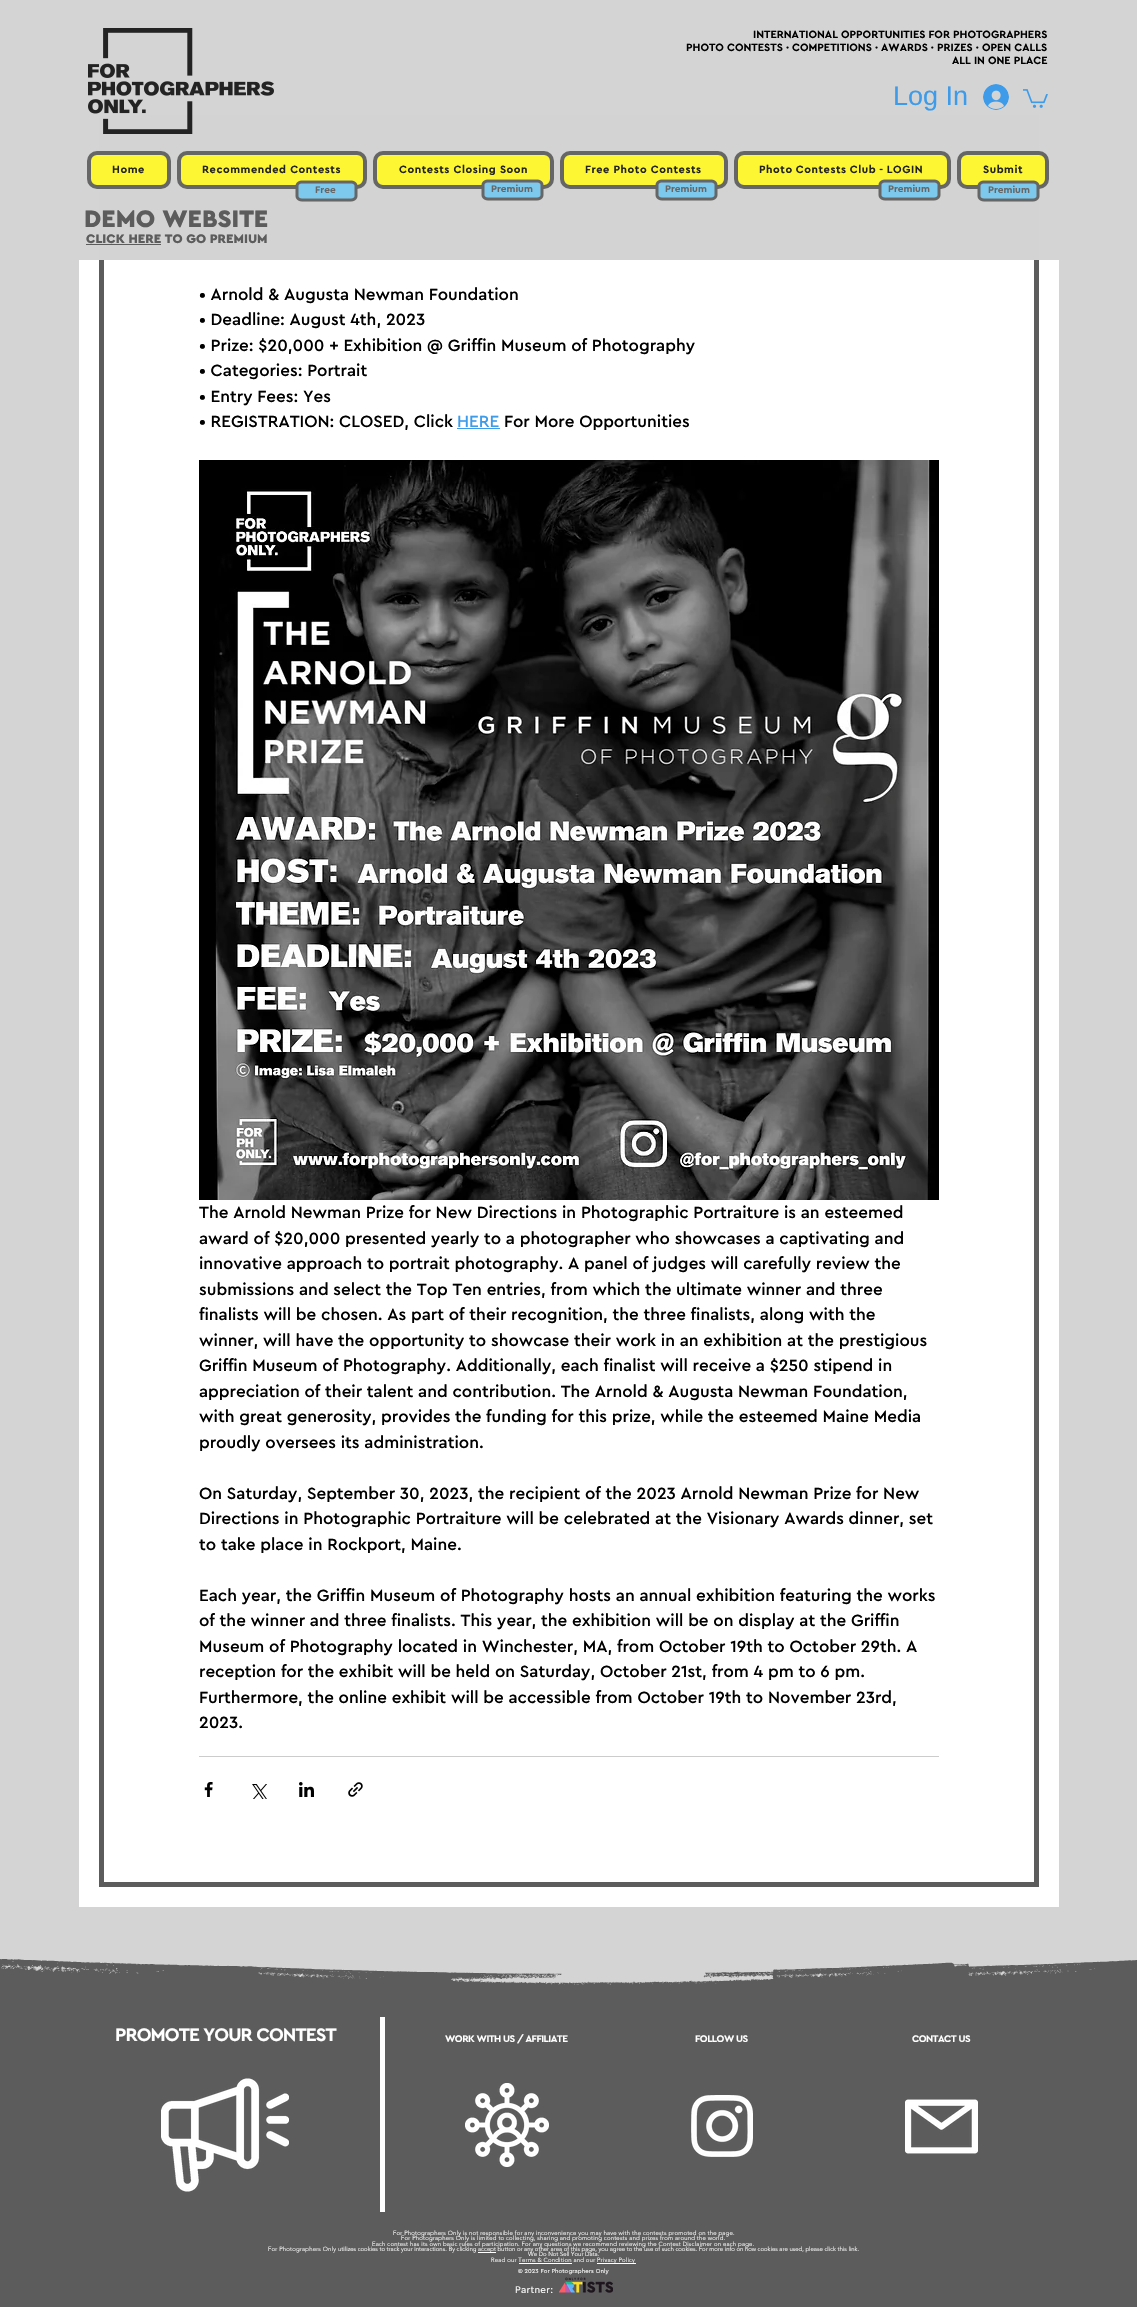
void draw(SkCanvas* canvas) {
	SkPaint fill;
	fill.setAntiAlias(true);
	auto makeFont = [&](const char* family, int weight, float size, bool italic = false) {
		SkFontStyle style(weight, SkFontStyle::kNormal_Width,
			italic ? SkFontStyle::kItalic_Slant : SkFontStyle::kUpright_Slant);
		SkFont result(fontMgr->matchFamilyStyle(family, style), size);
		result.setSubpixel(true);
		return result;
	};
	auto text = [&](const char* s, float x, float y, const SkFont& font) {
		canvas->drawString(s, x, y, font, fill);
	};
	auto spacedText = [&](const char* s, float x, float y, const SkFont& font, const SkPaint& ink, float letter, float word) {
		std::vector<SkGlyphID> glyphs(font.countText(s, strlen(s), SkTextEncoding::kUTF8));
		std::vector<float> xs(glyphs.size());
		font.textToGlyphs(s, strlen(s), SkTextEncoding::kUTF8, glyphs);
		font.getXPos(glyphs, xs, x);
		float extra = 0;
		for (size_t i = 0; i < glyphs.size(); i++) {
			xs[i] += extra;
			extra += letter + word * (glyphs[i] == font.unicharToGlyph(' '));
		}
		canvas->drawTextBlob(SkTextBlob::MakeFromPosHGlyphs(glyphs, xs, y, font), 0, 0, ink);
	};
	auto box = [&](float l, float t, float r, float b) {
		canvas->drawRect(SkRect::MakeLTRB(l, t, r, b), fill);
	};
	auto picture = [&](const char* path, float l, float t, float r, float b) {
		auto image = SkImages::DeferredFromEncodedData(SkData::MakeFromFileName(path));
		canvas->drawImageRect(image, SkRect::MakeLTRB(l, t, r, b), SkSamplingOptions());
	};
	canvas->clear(0xFFD4D4D4);
	fill.setColor(0xFFFFFFFF);
	box(79, 260, 1059, 1907);
	fill.setStyle(SkPaint::kStroke_Style);
	fill.setStrokeWidth(5);
	fill.setColor(0xFF5C5C5C);
	canvas->drawRect(SkRect::MakeLTRB(101.5f, 117.5f, 1036.5f, 1884.5f), fill);
	fill.setStyle(SkPaint::kFill_Style);
	fill.setColor(0xFFD3D3D3);
	box(99, 115, 1039, 260);
	picture("image0.png", 88, 28, 274, 134);
	picture("image1.png", 983, 84, 1009, 110);
	picture("image2.png", 1023, 89, 1048, 108);
	fill.setColor(0xFFFDF733);
	canvas->drawRoundRect(SkRect::MakeLTRB(89, 153, 169, 187), 8, 8, fill);
	fill.setStyle(SkPaint::kStroke_Style);
	fill.setStrokeWidth(4);
	fill.setColor(0xFF666666);
	canvas->drawRoundRect(SkRect::MakeLTRB(89, 153, 169, 187), 8, 8, fill);
	fill.setStyle(SkPaint::kFill_Style);
	fill.setColor(0xFFFDF733);
	canvas->drawRoundRect(SkRect::MakeLTRB(179, 153, 365, 187), 8, 8, fill);
	fill.setStyle(SkPaint::kStroke_Style);
	fill.setColor(0xFF666666);
	canvas->drawRoundRect(SkRect::MakeLTRB(179, 153, 365, 187), 8, 8, fill);
	fill.setStyle(SkPaint::kFill_Style);
	fill.setColor(0xFFFDF733);
	canvas->drawRoundRect(SkRect::MakeLTRB(375, 153, 552, 187), 8, 8, fill);
	fill.setStyle(SkPaint::kStroke_Style);
	fill.setColor(0xFF666666);
	canvas->drawRoundRect(SkRect::MakeLTRB(375, 153, 552, 187), 8, 8, fill);
	fill.setStyle(SkPaint::kFill_Style);
	fill.setColor(0xFFFDF733);
	canvas->drawRoundRect(SkRect::MakeLTRB(562, 153, 726, 187), 8, 8, fill);
	fill.setStyle(SkPaint::kStroke_Style);
	fill.setColor(0xFF666666);
	canvas->drawRoundRect(SkRect::MakeLTRB(562, 153, 726, 187), 8, 8, fill);
	fill.setStyle(SkPaint::kFill_Style);
	fill.setColor(0xFFFDF733);
	canvas->drawRoundRect(SkRect::MakeLTRB(736, 153, 949, 187), 8, 8, fill);
	fill.setStyle(SkPaint::kStroke_Style);
	fill.setColor(0xFF666666);
	canvas->drawRoundRect(SkRect::MakeLTRB(736, 153, 949, 187), 8, 8, fill);
	fill.setStyle(SkPaint::kFill_Style);
	fill.setColor(0xFFFDF733);
	canvas->drawRoundRect(SkRect::MakeLTRB(959, 153, 1047, 187), 8, 8, fill);
	fill.setStyle(SkPaint::kStroke_Style);
	fill.setColor(0xFF666666);
	canvas->drawRoundRect(SkRect::MakeLTRB(959, 153, 1047, 187), 8, 8, fill);
	picture("image3.png", 295, 180, 358, 202);
	picture("image4.png", 481, 179, 544, 201);
	picture("image4.png", 655, 179, 718, 201);
	picture("image4.png", 878, 179, 941, 201);
	picture("image3.png", 977, 180, 1040, 202);
	fill.setStyle(SkPaint::kFill_Style);
	fill.setColor(0xFF5C5C5C);
	box(86, 244, 161, 245);
	fill.setColor(0xFF3D9BE9);
	box(457, 428, 500, 429);
	picture("image5.png", 199, 460, 939, 1200);
	fill.setColor(0xFFCCCCCC);
	box(199, 1756, 939, 1757);
	picture("image6.png", 204, 1782, 213, 1797);
	picture("image7.png", 252, 1784, 267, 1799);
	picture("image8.png", 299, 1782, 314, 1797);
	picture("image9.png", 348, 1782, 363, 1797);
	picture("image10.png", 0, 1959, 1137, 1993);
	fill.setColor(0xFF5C5C5C);
	box(0, 1993, 1137, 2307);
	fill.setColor(0xFFFFFFFF);
	box(380, 2017, 385, 2212);
	picture("image11.png", 161, 2078, 289, 2192);
	picture("image12.png", 465, 2083, 549, 2167);
	picture("image13.png", 691, 2095, 753, 2157);
	picture("image14.png", 905, 2099, 978, 2154);
	box(478, 2252, 496, 2253);
	box(519, 2263, 572, 2264);
	box(597, 2263, 636, 2264);
	picture("image15.png", 559, 2277, 613, 2293);
	auto font1 = makeFont("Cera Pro", 700, 11);
	fill.setColor(0xFF000000);
	text("INTERNATIONAL OPPORTUNITIES FOR PHOTOGRAPHERS", 753, 38, font1);
	text("PHOTO CONTESTS · COMPETITIONS · AWARDS · PRIZES · OPEN CALLS", 686, 51, font1);
	text("ALL IN ONE PLACE", 952, 64, font1);
	auto font2 = makeFont("Liberation Sans", 400, 27);
	fill.setColor(0xFF3D9BE9);
	text("Log In", 893, 105, font2);
	auto font3 = makeFont("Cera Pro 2", 700, 11);
	fill.setColor(0xFF242323);
	spacedText("Home", 112, 173, font3, fill, 0.55f, 0);
	spacedText("Recommended Contests", 202, 173, font3, fill, 0.55f, 0);
	spacedText("Contests Closing Soon", 399, 173, font3, fill, 0.55f, 0);
	spacedText("Free Photo Contests", 585, 173, font3, fill, 0.55f, 0);
	spacedText("Photo Contests Club - LOGIN", 759, 173, font3, fill, 0.55f, -0.5f);
	spacedText("Submit", 983, 173, font3, fill, 0.55f, 0);
	auto font4 = makeFont("Cera Pro 2", 700, 10);
	fill.setColor(0xFF666666);
	text("Free", 315, 193, font4);
	text("Premium", 491, 192, font4);
	text("Premium", 665, 192, font4);
	text("Premium", 888, 192, font4);
	text("Premium", 988, 193, font4);
	auto font5 = makeFont("Cera Pro", 900, 25);
	fill.setColor(0xFF5C5C5C);
	text("DEMO WEBSITE", 84, 227, font5);
	auto font6 = makeFont("Cera Pro", 900, 13);
	text("CLICK HERE TO GO PREMIUM", 86, 243, font6);
	auto font7 = makeFont("Cera Pro", 500, 17);
	fill.setColor(0xFF000000);
	text("• Arnold & Augusta Newman Foundation", 199, 300, font7);
	text("• Deadline: August 4th, 2023", 199, 325, font7);
	text("• Prize: $20,000 + Exhibition @ Griffin Museum of Photography", 199, 351, font7);
	text("• Categories: Portrait", 199, 376, font7);
	text("• Entry Fees: Yes", 199, 402, font7);
	text("• REGISTRATION: CLOSED, Click", 199, 427, font7);
	fill.setColor(0xFF3D9BE9);
	text("HERE", 457, 427, font7);
	fill.setColor(0xFF000000);
	text("For More Opportunities", 504, 427, font7);
	text("The Arnold Newman Prize for New Directions in Photographic Portraiture is an esteemed", 199, 1218, font7);
	text("award of $20,000 presented yearly to a photographer who showcases a captivating and", 199, 1244, font7);
	text("innovative approach to portrait photography. A panel of judges will carefully review the", 199, 1269, font7);
	text("submissions and select the Top Ten entries, from which the ultimate winner and three", 199, 1295, font7);
	text("finalists will be chosen. As part of their recognition, the three finalists, along with the", 199, 1320, font7);
	text("winner, will have the opportunity to showcase their work in an exhibition at the prestigious", 199, 1346, font7);
	text("Griffin Museum of Photography. Additionally, each finalist will receive a $250 stipend in", 199, 1371, font7);
	text("appreciation of their talent and contribution. The Arnold & Augusta Newman Foundation,", 199, 1397, font7);
	text("with great generosity, provides the funding for this prize, while the esteemed Maine Media", 199, 1422, font7);
	text("proudly oversees its administration.", 199, 1448, font7);
	text("On Saturday, September 30, 2023, the recipient of the 2023 Arnold Newman Prize for New", 199, 1499, font7);
	text("Directions in Photographic Portraiture will be celebrated at the Visionary Awards dinner, set", 199, 1524, font7);
	text("to take place in Rockport, Maine.", 199, 1550, font7);
	text("Each year, the Griffin Museum of Photography hosts an annual exhibition featuring the works", 199, 1601, font7);
	text("of the winner and three finalists. This year, the exhibition will be on display at the Griffin", 199, 1626, font7);
	text("Museum of Photography located in Winchester, MA, from October 19th to October 29th. A", 199, 1652, font7);
	text("reception for the exhibit will be held on Saturday, October 21st, from 4 pm to 6 pm.", 199, 1677, font7);
	text("Furthermore, the online exhibit will be accessible from October 19th to November 23rd,", 199, 1703, font7);
	text("2023.", 199, 1728, font7);
	auto font8 = makeFont("Cera Pro", 700, 19);
	fill.setColor(0xFFFFFFFF);
	spacedText("PROMOTE YOUR CONTEST", 115, 2041, font8, fill, -0.9f, 0);
	auto font9 = makeFont("Cera Pro", 700, 10);
	spacedText("WORK WITH US / AFFILIATE", 445, 2042, font9, fill, -0.5f, 0);
	spacedText("FOLLOW US", 695, 2042, font9, fill, -0.5f, 0);
	spacedText("CONTACT US", 912, 2042, font9, fill, -0.5f, 0);
	auto font10 = makeFont("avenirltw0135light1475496", 300, 6);
	spacedText("For Photographers Only is not responsible for any inconvenience you may have with the contests promoted on the page.", 393, 2235, font10, fill, 0.18f, 0);
	spacedText("For Photographers Only is limited to collecting, sharing and promoting contests and prizes from around the world.", 401, 2240, font10, fill, 0.18f, 0);
	spacedText("Each contest has its own basic rules of participation. For any questions we recommend reviewing the Contest Disclaimer on each page.", 372, 2246, font10, fill, 0.18f, 0);
	spacedText("For Photographers Only", 268, 2251, font10, fill, 0.18f, 0);
	text("utilizes cookies to track your interactions. By clicking", 338, 2251, font10);
	text("accept button or any other area of this page, you agree to the use of such cookies. For more info on how cookies are used, please click this link.", 478, 2251, font10);
	text("We Do Not Sell Your Data.", 528, 2256, font10);
	spacedText("Read our Terms & Condition and our", 491, 2262, font10, fill, 0.18f, 0);
	spacedText("Privacy Policy", 597, 2262, font10, fill, 0.18f, 0);
	auto font11 = makeFont("Cera Pro", 400, 6);
	spacedText("© 2023 For Photographers Only", 518, 2273, font11, fill, 0.1f, 0);
	auto font12 = makeFont("Cera Pro", 400, 10);
	spacedText("Partner:", 515, 2293, font12, fill, 0.25f, 0);
}
